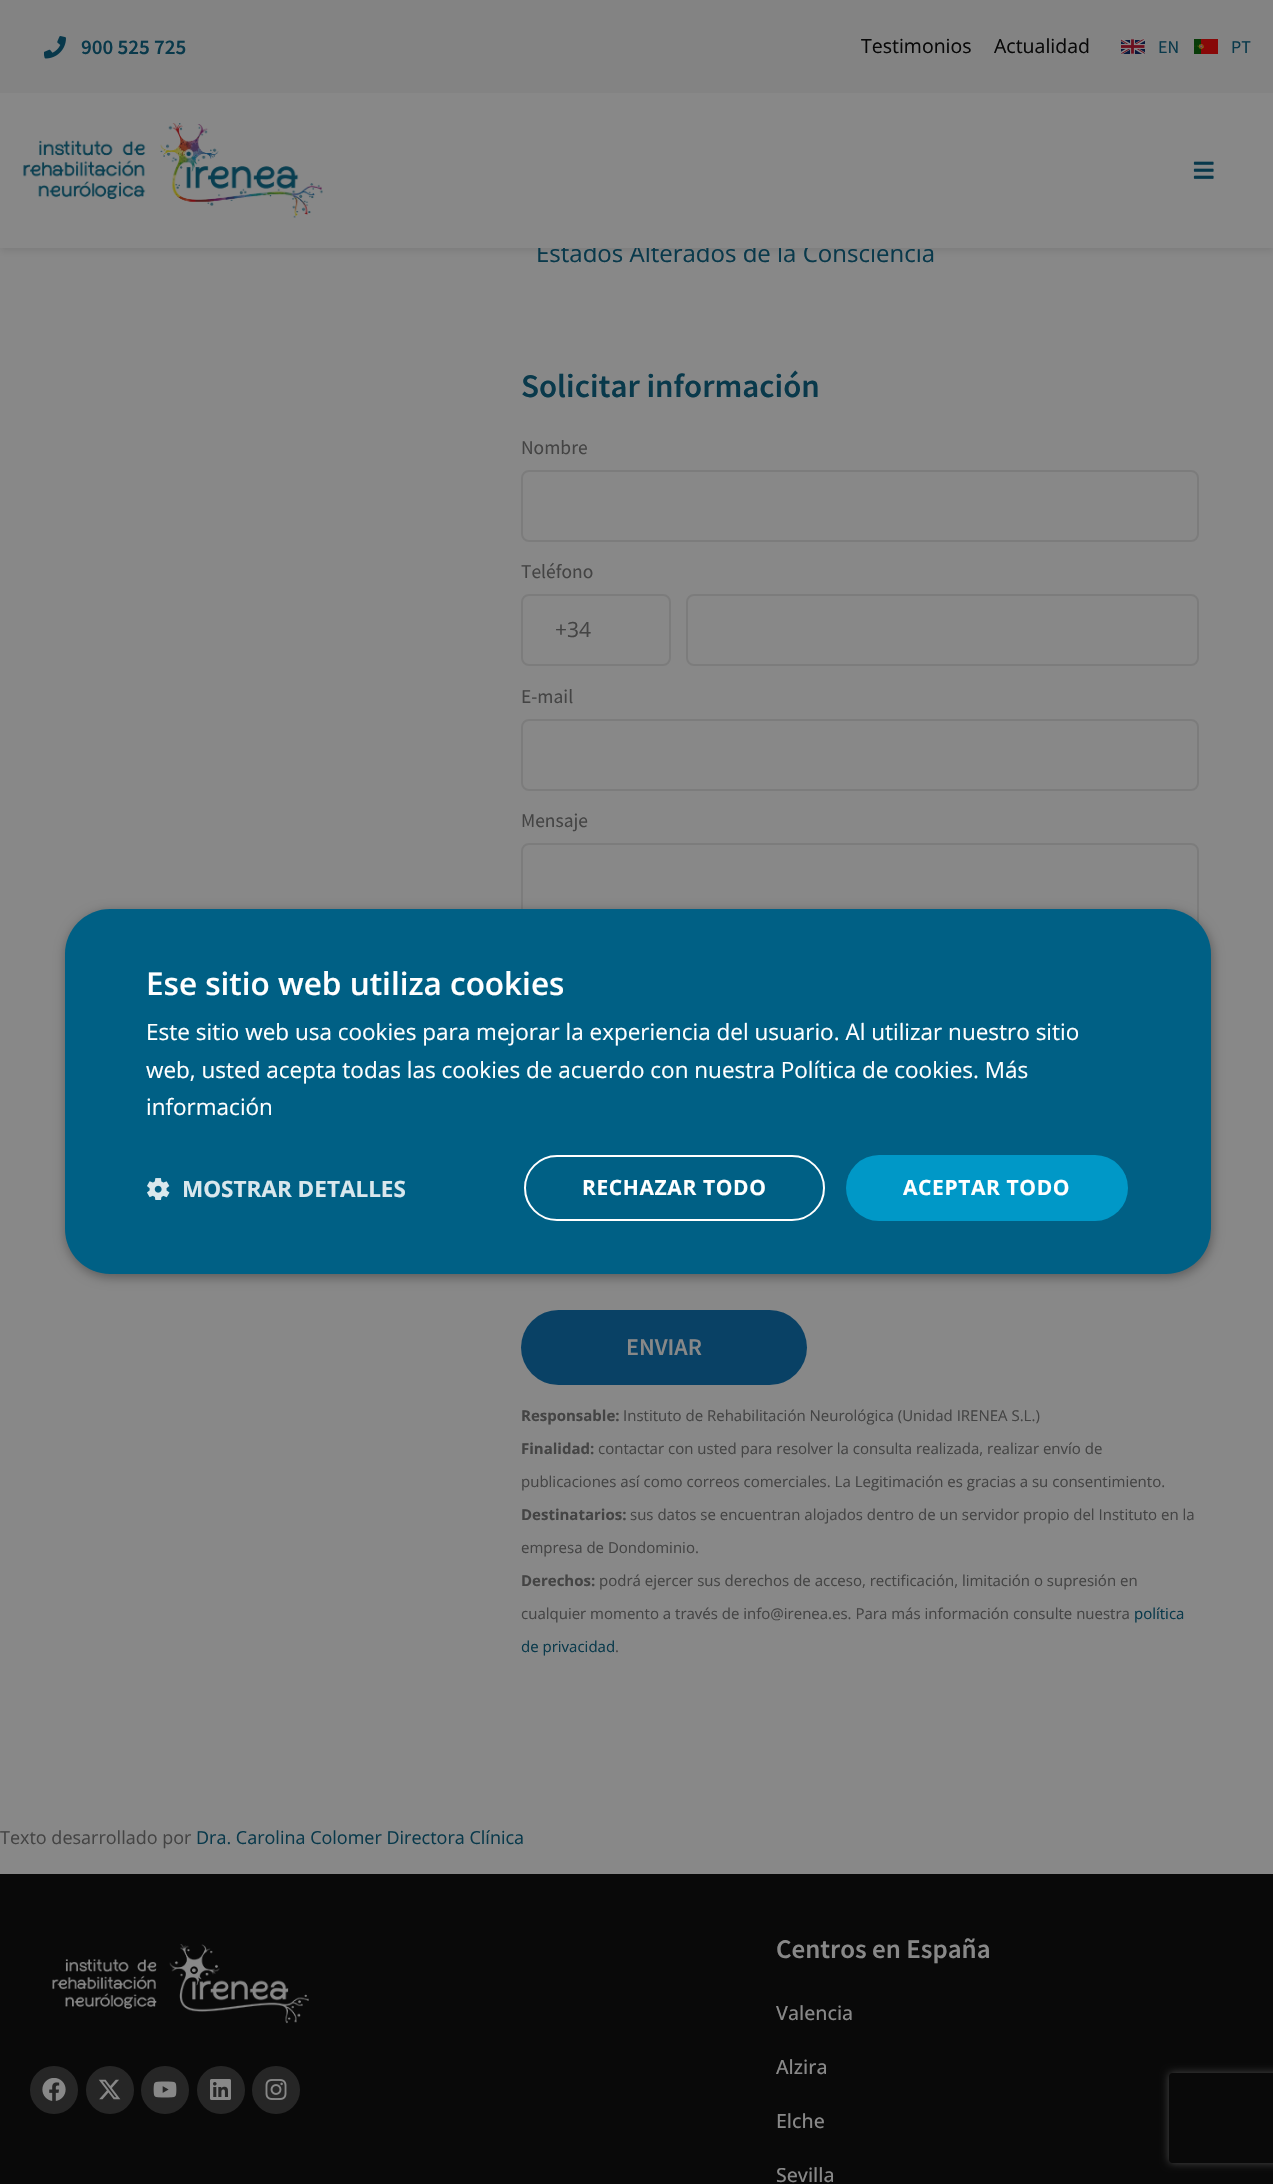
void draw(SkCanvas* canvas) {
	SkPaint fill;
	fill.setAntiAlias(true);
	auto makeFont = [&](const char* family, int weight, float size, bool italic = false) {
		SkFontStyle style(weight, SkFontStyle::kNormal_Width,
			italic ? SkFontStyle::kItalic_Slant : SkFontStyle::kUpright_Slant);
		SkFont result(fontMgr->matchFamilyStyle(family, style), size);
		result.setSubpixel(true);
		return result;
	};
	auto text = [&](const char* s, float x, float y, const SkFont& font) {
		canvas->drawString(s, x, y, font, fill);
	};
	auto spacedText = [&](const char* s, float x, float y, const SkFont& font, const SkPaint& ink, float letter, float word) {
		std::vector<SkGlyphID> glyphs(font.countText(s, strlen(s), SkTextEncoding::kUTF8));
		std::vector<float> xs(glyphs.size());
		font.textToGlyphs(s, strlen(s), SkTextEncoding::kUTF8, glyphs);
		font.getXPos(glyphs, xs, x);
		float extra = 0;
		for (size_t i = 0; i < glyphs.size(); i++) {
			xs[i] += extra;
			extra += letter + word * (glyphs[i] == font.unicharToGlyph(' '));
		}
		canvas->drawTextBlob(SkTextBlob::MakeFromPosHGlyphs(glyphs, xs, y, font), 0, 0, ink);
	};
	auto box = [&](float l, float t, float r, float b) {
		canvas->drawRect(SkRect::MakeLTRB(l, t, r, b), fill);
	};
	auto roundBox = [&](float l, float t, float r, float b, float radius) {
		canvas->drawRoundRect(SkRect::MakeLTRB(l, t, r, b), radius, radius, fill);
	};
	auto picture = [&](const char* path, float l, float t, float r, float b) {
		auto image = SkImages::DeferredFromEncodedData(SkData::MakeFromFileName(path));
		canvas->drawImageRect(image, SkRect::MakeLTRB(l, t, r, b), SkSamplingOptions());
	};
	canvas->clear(0xFF888888);
	fill.setColor(0x1A090909);
	fill.setMaskFilter(SkMaskFilter::MakeBlur(kNormal_SkBlurStyle, 4));
	canvas->drawRect(SkRect::MakeLTRB(0, 3, 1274, 251), fill);
	fill.setMaskFilter(nullptr);
	fill.setColor(0xFF838383);
	box(0, 0, 1273, 93);
	picture("image0.png", 44, 36, 66, 59);
	picture("image1.png", 1121, 38, 1145, 55);
	picture("image2.png", 1194, 39, 1218, 54);
	fill.setStyle(SkPaint::kStroke_Style);
	fill.setStrokeWidth(2);
	fill.setColor(0xFF7C7C7C);
	canvas->drawRoundRect(SkRect::MakeLTRB(522, 471, 1198, 541), 7, 7, fill);
	canvas->drawRoundRect(SkRect::MakeLTRB(522, 595, 670, 665), 7, 7, fill);
	canvas->drawRoundRect(SkRect::MakeLTRB(687, 595, 1198, 665), 7, 7, fill);
	canvas->drawRoundRect(SkRect::MakeLTRB(522, 720, 1198, 790), 7, 7, fill);
	canvas->drawRoundRect(SkRect::MakeLTRB(522, 844, 1198, 1211), 7, 7, fill);
	fill.setStyle(SkPaint::kFill_Style);
	fill.setColor(0xFF094165);
	roundBox(521, 1310, 807, 1385, 37.5f);
	fill.setColor(0x59000000);
	fill.setMaskFilter(SkMaskFilter::MakeBlur(kNormal_SkBlurStyle, 6));
	canvas->drawRoundRect(SkRect::MakeLTRB(66, 912, 1212, 1277), 45, 45, fill);
	fill.setMaskFilter(nullptr);
	fill.setColor(0xFF006085);
	roundBox(65, 909, 1211, 1274, 45);
	picture("image5.png", 147, 1178, 170, 1200);
	fill.setStyle(SkPaint::kStroke_Style);
	fill.setColor(0xFFFFFFFF);
	canvas->drawRoundRect(SkRect::MakeLTRB(525, 1156, 824, 1220), 32, 32, fill);
	fill.setStyle(SkPaint::kFill_Style);
	fill.setColor(0xFF0098C7);
	roundBox(846, 1155, 1128, 1221, 33);
	fill.setColor(0xFF090909);
	box(0, 1874, 1273, 2184);
	picture("image6.png", 52, 1944, 309, 2024);
	fill.setColor(0xFF262626);
	canvas->drawCircle(54, 2090, 24, fill);
	picture("image7.png", 42, 2078, 66, 2101);
	canvas->drawCircle(110, 2090, 24, fill);
	picture("image8.png", 98, 2079, 121, 2100);
	canvas->drawCircle(165, 2090, 24, fill);
	picture("image9.png", 153, 2081, 177, 2098);
	canvas->drawCircle(221, 2090, 24, fill);
	picture("image10.png", 210, 2079, 231, 2100);
	canvas->drawCircle(276, 2090, 24, fill);
	picture("image11.png", 265, 2079, 287, 2100);
	canvas->save();
	canvas->clipPath(SkPathBuilder(SkPathFillType::kEvenOdd).moveTo(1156, 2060).lineTo(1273, 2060).lineTo(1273, 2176).lineTo(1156, 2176).close().moveTo(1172, 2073).lineTo(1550, 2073).cubicTo(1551.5f, 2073, 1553, 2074.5f, 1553, 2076).lineTo(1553, 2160).cubicTo(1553, 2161.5f, 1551.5f, 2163, 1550, 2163).lineTo(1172, 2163).cubicTo(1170.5f, 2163, 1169, 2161.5f, 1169, 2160).lineTo(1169, 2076).cubicTo(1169, 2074.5f, 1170.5f, 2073, 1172, 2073).close().detach(), true);
	fill.setColor(0xFF494949);
	fill.setMaskFilter(SkMaskFilter::MakeBlur(kNormal_SkBlurStyle, 4));
	canvas->drawRoundRect(SkRect::MakeLTRB(1169, 2073, 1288, 2163), 3, 3, fill);
	fill.setMaskFilter(nullptr);
	canvas->restore();
	auto font1 = makeFont("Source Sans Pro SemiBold", 600, 21);
	fill.setColor(0xFF09394B);
	text("900 525 725", 81, 54, font1);
	auto font2 = makeFont("Open Sans", 400, 19.5f);
	fill.setColor(0xFF090909);
	text("Testimonios", 861, 53, font2);
	text("Actualidad", 994, 53, font2);
	auto font3 = makeFont("Source Sans Pro", 400, 18);
	fill.setColor(0xFF09394B);
	text("EN", 1158, 53, font3);
	text("PT", 1231, 53, font3);
	auto font4 = makeFont("Open Sans", 400, 24);
	text("Estados Alterados de la Consciencia", 536, 262, font4);
	fill.setColor(0xFF888888);
	box(0, 93, 1273, 248);
	picture("image4.png", 1193, 161, 1214, 179);
	picture("image3.png", 23, 123, 323, 218);
	auto font5 = makeFont("Source Sans Pro SemiBold", 600, 33);
	fill.setColor(0xFF09394B);
	text("Solicitar información", 521, 397, font5);
	auto font6 = makeFont("Source Sans Pro", 400, 19.5f);
	fill.setColor(0xFF444444);
	text("Nombre", 521, 454, font6);
	text("Teléfono", 521, 578, font6);
	auto font7 = makeFont("Open Sans", 400, 21);
	text("+34", 555, 637, font7);
	text("E-mail", 521, 703, font6);
	text("Mensaje", 521, 827, font6);
	auto font8 = makeFont("Source Sans Pro SemiBold", 600, 24);
	fill.setColor(0xFF888888);
	text("ENVIAR", 626, 1355, font8);
	auto font9 = makeFont("Open Sans", 700, 15);
	fill.setColor(0xFF444444);
	text("Responsable:", 521, 1421, font9);
	auto font10 = makeFont("Open Sans", 400, 15);
	text("Instituto de Rehabilitación Neurológica (Unidad IRENEA S.L.)", 623, 1421, font10);
	text("Finalidad:", 521, 1454, font9);
	text("contactar con usted para resolver la consulta realizada, realizar envío de", 598, 1454, font10);
	text("publicaciones así como correos comerciales. La Legitimación es gracias a su consentimiento.", 521, 1487, font10);
	text("Destinatarios:", 521, 1520, font9);
	text("sus datos se encuentran alojados dentro de un servidor propio del Instituto en la", 630, 1520, font10);
	text("empresa de Dondominio.", 521, 1553, font10);
	text("Derechos:", 521, 1586, font9);
	text("podrá ejercer sus derechos de acceso, rectificación, limitación o supresión en", 599, 1586, font10);
	text("cualquier momento a través de info@irenea.es. Para más información consulte nuestra", 521, 1619, font10);
	fill.setColor(0xFF09394B);
	text("política", 1134, 1619, font10);
	text("de privacidad", 521, 1652, font10);
	fill.setColor(0xFF444444);
	text(".", 615, 1652, font10);
	auto font11 = makeFont("Open Sans", 400, 18);
	text("Texto desarrollado por", 0, 1844, font11);
	fill.setColor(0xFF09394B);
	text("Dra. Carolina Colomer Directora Clínica", 196, 1844, font11);
	auto font12 = makeFont("Open Sans", 600, 31.5f);
	fill.setColor(0xFFFFFFFF);
	text("Ese sitio web utiliza cookies", 146, 995, font12);
	auto font13 = makeFont("Open Sans", 400, 22.5f);
	text("Este sitio web usa cookies para mejorar la experiencia del usuario. Al utilizar nuestro sitio", 146, 1040, font13);
	text("web, usted acepta todas las cookies de acuerdo con nuestra Política de cookies. Más", 146, 1078, font13);
	text("información", 146, 1115, font13);
	auto font14 = makeFont("Open Sans", 700, 22.5f);
	fill.setColor(0xFFD9E7ED);
	text("MOSTRAR DETALLES", 182, 1197, font14);
	auto font15 = makeFont("Open Sans", 700, 21);
	fill.setColor(0xFFFFFFFF);
	spacedText("RECHAZAR TODO", 582, 1195, font15, fill, 0.6f, 0);
	spacedText("ACEPTAR TODO", 903, 1195, font15, fill, 0.6f, 0);
	auto font16 = makeFont("Source Sans Pro SemiBold", 600, 27);
	fill.setColor(0xFF888888);
	text("Centros en España", 776, 1958, font16);
	auto font17 = makeFont("Open Sans", 500, 19.5f);
	text("Valencia", 776, 2020, font17);
	text("Alzira", 776, 2074, font17);
	text("Elche", 776, 2128, font17);
	text("Sevilla", 776, 2182, font17);
}
